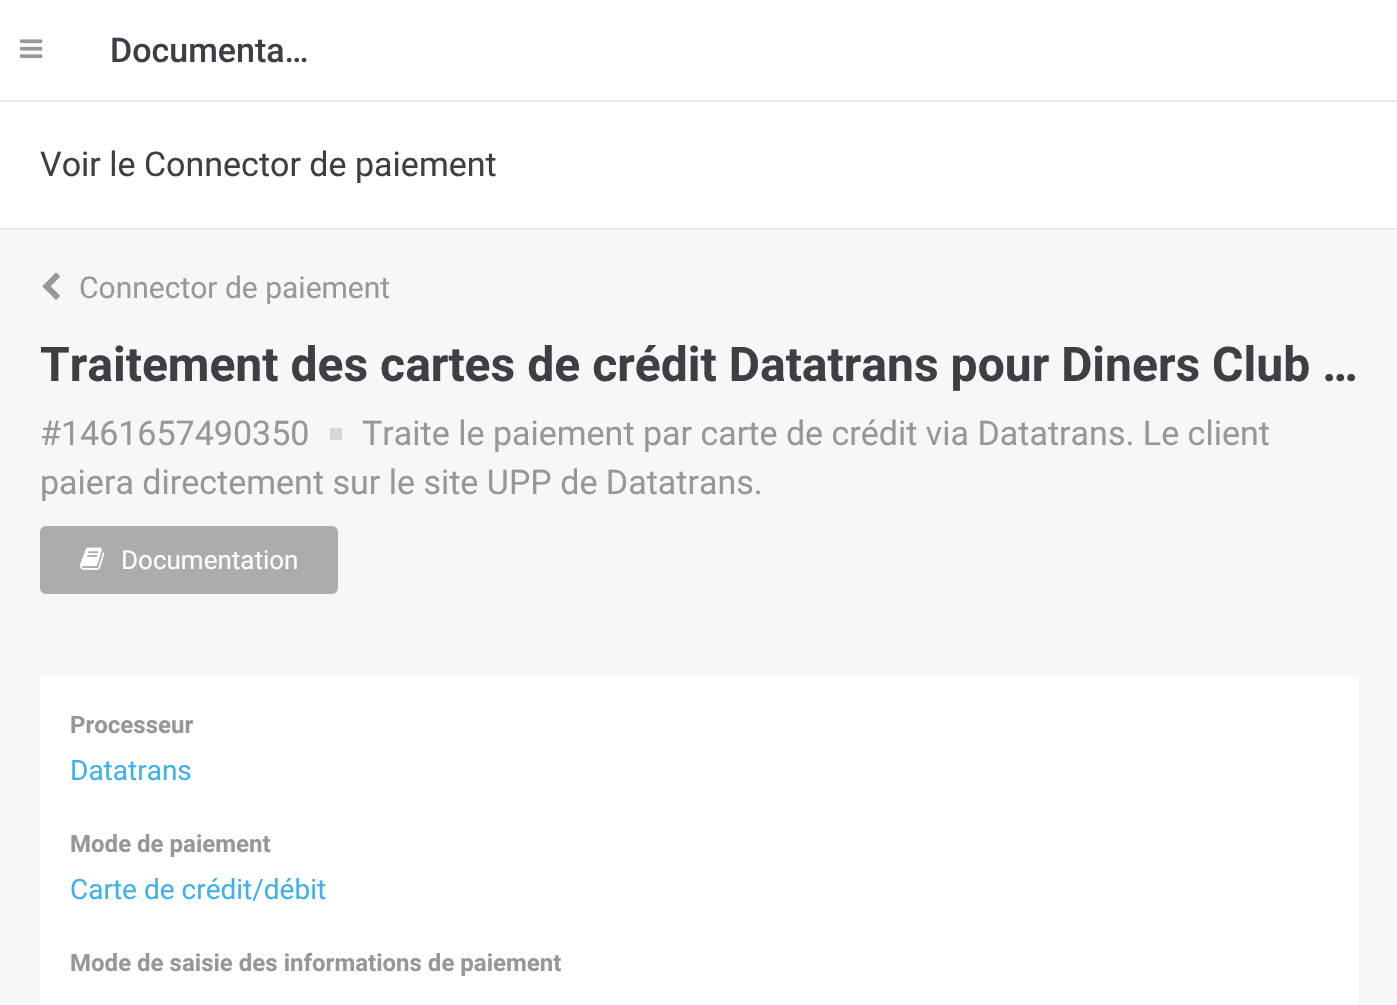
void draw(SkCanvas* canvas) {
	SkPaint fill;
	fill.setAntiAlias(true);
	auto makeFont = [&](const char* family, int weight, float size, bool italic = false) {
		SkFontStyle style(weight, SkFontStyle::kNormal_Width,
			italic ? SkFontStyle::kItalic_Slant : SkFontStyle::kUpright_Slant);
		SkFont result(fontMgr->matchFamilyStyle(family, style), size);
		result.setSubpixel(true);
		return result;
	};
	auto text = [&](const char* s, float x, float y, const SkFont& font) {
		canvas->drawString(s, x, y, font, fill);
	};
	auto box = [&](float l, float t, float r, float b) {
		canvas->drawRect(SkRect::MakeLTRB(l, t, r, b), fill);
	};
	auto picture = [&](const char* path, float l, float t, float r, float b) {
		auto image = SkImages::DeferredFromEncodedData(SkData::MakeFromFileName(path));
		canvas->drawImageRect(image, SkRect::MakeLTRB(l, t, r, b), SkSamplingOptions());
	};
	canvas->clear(0xFFF7F7F7);
	fill.setColor(0xFFFFFFFF);
	box(0, 0, 1397, 100);
	fill.setColor(0xFFEAEAEA);
	box(0, 100, 1397, 102);
	picture("image0.png", 20, 39, 43, 58);
	fill.setColor(0xFFFFFFFF);
	box(0, 102, 1397, 228);
	fill.setColor(0xFFEAEAEA);
	box(0, 228, 1397, 230);
	picture("image1.png", 42, 272, 60, 300);
	fill.setColor(0xFFD7D7D7);
	box(330, 428, 342, 440);
	fill.setColor(0xFFACACAC);
	canvas->drawRoundRect(SkRect::MakeLTRB(42, 528, 336, 592), 4, 4, fill);
	fill.setStyle(SkPaint::kStroke_Style);
	fill.setStrokeWidth(4);
	canvas->drawRoundRect(SkRect::MakeLTRB(42, 528, 336, 592), 4, 4, fill);
	picture("image2.png", 80, 547, 105, 570);
	fill.setStyle(SkPaint::kFill_Style);
	fill.setColor(0xFFFFFFFF);
	box(40, 676, 1358, 1005);
	auto font1 = makeFont("Roboto", 500, 34);
	fill.setColor(0xFF3D3F46);
	text("Documenta…", 110, 62, font1);
	auto font2 = makeFont("Roboto", 400, 34);
	text("Voir le Connector de paiement", 40, 176, font2);
	auto font3 = makeFont("Roboto", 400, 30);
	fill.setColor(0xFF979797);
	text("Connector de paiement", 79, 298, font3);
	auto font4 = makeFont("Roboto", 700, 48);
	fill.setColor(0xFF3D3F46);
	text("Traitement des cartes de crédit Datatrans pour Diners Club …", 40, 381, font4);
	fill.setColor(0xFF979797);
	text("#1461657490350", 40, 445, font2);
	text("Traite le paiement par carte de crédit via Datatrans. Le client", 362, 445, font2);
	text("paiera directement sur le site UPP de Datatrans.", 40, 494, font2);
	auto font5 = makeFont("Roboto", 400, 26);
	fill.setColor(0xFFFFFFFF);
	text("Documentation", 121, 569, font5);
	auto font6 = makeFont("Roboto", 700, 24);
	fill.setColor(0xFF979797);
	text("Processeur", 70, 733, font6);
	auto font7 = makeFont("Roboto", 400, 28);
	fill.setColor(0xFF3EB0EB);
	text("Datatrans", 70, 780, font7);
	fill.setColor(0xFF979797);
	text("Mode de paiement", 70, 852, font6);
	fill.setColor(0xFF3EB0EB);
	text("Carte de crédit/débit", 70, 899, font7);
	fill.setColor(0xFF979797);
	text("Mode de saisie des informations de paiement", 70, 971, font6);
}
